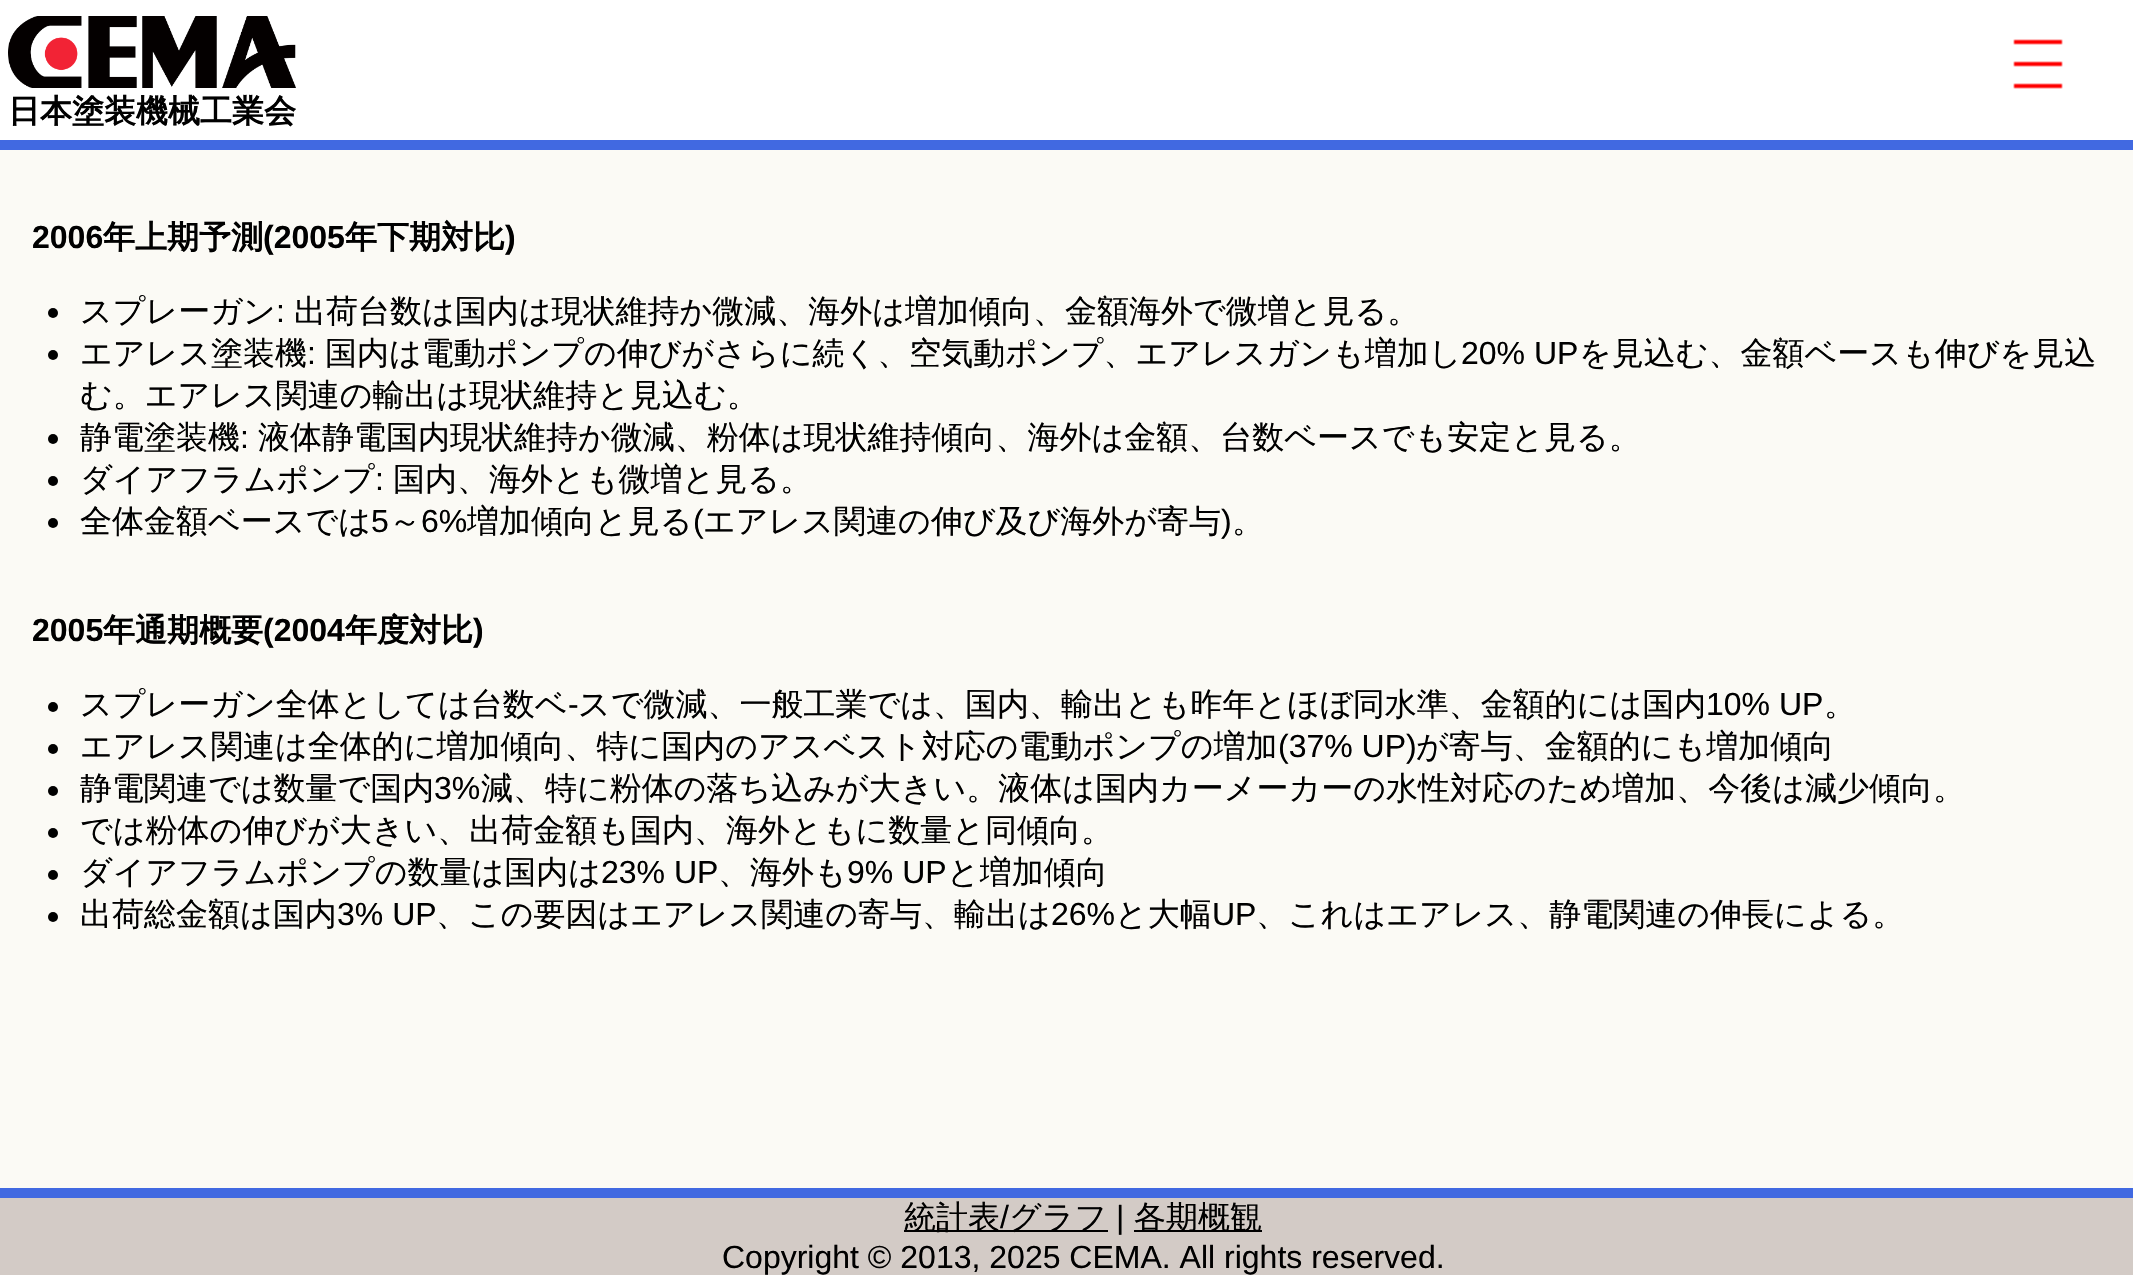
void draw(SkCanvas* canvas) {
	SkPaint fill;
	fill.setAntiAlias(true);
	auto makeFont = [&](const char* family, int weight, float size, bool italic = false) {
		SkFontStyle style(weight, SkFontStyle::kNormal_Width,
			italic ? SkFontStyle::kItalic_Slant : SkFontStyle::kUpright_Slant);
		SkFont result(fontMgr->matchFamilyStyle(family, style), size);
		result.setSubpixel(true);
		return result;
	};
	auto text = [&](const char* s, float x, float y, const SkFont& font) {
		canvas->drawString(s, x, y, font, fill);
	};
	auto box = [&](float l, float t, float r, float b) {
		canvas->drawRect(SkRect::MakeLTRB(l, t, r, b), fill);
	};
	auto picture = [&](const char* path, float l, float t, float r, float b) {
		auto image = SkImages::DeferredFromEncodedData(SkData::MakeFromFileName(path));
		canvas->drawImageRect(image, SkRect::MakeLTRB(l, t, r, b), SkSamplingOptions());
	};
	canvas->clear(0xFFFBFAF5);
	fill.setColor(0xFFFFFFFF);
	box(0, 0, 2133, 140);
	fill.setColor(0xFF4169E1);
	box(0, 140, 2133, 150);
	picture("image0.png", 2013, 39, 2063, 89);
	picture("image1.png", 8, 16, 296, 88);
	fill.setColor(0xFF000000);
	canvas->drawCircle(53, 313, 5, fill);
	canvas->drawCircle(53, 355, 5, fill);
	canvas->drawCircle(53, 439, 5, fill);
	canvas->drawCircle(53, 481, 5, fill);
	canvas->drawCircle(53, 523, 5, fill);
	canvas->drawCircle(53, 707, 5, fill);
	canvas->drawCircle(53, 749, 5, fill);
	canvas->drawCircle(53, 791, 5, fill);
	canvas->drawCircle(53, 833, 5, fill);
	canvas->drawCircle(53, 875, 5, fill);
	canvas->drawCircle(53, 917, 5, fill);
	fill.setColor(0xFFD3CBC6);
	box(0, 1198, 2133, 1275);
	fill.setColor(0xFF4169E1);
	box(0, 1188, 2133, 1198);
	fill.setColor(0xFF000000);
	box(904, 1230, 1108, 1232);
	box(1134, 1230, 1262, 1232);
	auto font1 = makeFont("WenQuanYi Zen Hei", 700, 32);
	text("日本塗装機械工業会", 8, 122, font1);
	auto font2 = makeFont("Liberation Sans", 700, 32);
	text("2006", 32, 248, font2);
	text("年上期予測", 103, 248, font1);
	text("(2005", 263, 248, font2);
	text("年下期対比", 345, 248, font1);
	text(")", 505, 248, font2);
	auto font3 = makeFont("WenQuanYi Zen Hei", 500, 32);
	text("スプレーガン", 80, 322, font3);
	auto font4 = makeFont("Liberation Sans", 400, 32);
	text(":", 276, 322, font4);
	text("出荷台数は国内は現状維持か微減、海外は増加傾向、金額海外で微増と見る。", 294, 322, font3);
	text("エアレス塗装機", 80, 364, font3);
	text(":", 307, 364, font4);
	text("国内は電動ポンプの伸びがさらに続く、空気動ポンプ、エアレスガンも増加し", 325, 364, font3);
	text("20% UP", 1461, 364, font4);
	text("を見込む、金額ベースも伸びを見込", 1579, 364, font3);
	text("む。エアレス関連の輸出は現状維持と見込む。", 80, 406, font3);
	text("静電塗装機", 80, 448, font3);
	text(":", 240, 448, font4);
	text("液体静電国内現状維持か微減、粉体は現状維持傾向、海外は金額、台数ベースでも安定と見る。", 258, 448, font3);
	text("ダイアフラムポンプ", 80, 490, font3);
	text(":", 375, 490, font4);
	text("国内、海外とも微増と見る。", 393, 490, font3);
	text("全体金額ベースでは", 80, 532, font3);
	text("5", 371, 532, font4);
	text("～", 389, 532, font3);
	text("6%", 421, 532, font4);
	text("増加傾向と見る", 467, 532, font3);
	text("(", 693, 532, font4);
	text("エアレス関連の伸び及び海外が寄与", 703, 532, font3);
	text(")", 1221, 532, font4);
	text("。", 1232, 532, font3);
	text("2005", 32, 641, font2);
	text("年通期概要", 103, 641, font1);
	text("(2004", 263, 641, font2);
	text("年度対比", 345, 641, font1);
	text(")", 473, 641, font2);
	text("スプレーガン全体としては台数ベ", 80, 715, font3);
	text("-", 568, 715, font4);
	text("スで微減、一般工業では、国内、輸出とも昨年とほぼ同水準、金額的には国内", 578, 715, font3);
	text("10% UP", 1706, 715, font4);
	text("。", 1824, 715, font3);
	text("エアレス関連は全体的に増加傾向、特に国内のアスベスト対応の電動ポンプの増加", 80, 757, font3);
	text("(37% UP)", 1278, 757, font4);
	text("が寄与、金額的にも増加傾向", 1416, 757, font3);
	text("静電関連では数量で国内", 80, 799, font3);
	text("3%", 434, 799, font4);
	text("減、特に粉体の落ち込みが大きい。液体は国内カーメーカーの水性対応のため増加、今後は減少傾向。", 481, 799, font3);
	text("では粉体の伸びが大きい、出荷金額も国内、海外ともに数量と同傾向。", 80, 841, font3);
	text("ダイアフラムポンプの数量は国内は", 80, 883, font3);
	text("23% UP", 601, 883, font4);
	text("、海外も", 718, 883, font3);
	text("9% UP", 847, 883, font4);
	text("と増加傾向", 947, 883, font3);
	text("出荷総金額は国内", 80, 925, font3);
	text("3% UP", 337, 925, font4);
	text("、この要因はエアレス関連の寄与、輸出は", 436, 925, font3);
	text("26%", 1051, 925, font4);
	text("と大幅", 1115, 925, font3);
	text("UP", 1212, 925, font4);
	text("、これはエアレス、静電関連の伸長による。", 1256, 925, font3);
	text("統計表", 904, 1228, font3);
	text("/", 1000, 1228, font4);
	text("グラフ", 1009, 1228, font3);
	text("|", 1116, 1228, font4);
	text("各期概観", 1134, 1228, font3);
	text("Copyright © 2013, 2025 CEMA. All rights reserved.", 722, 1268, font4);
}
